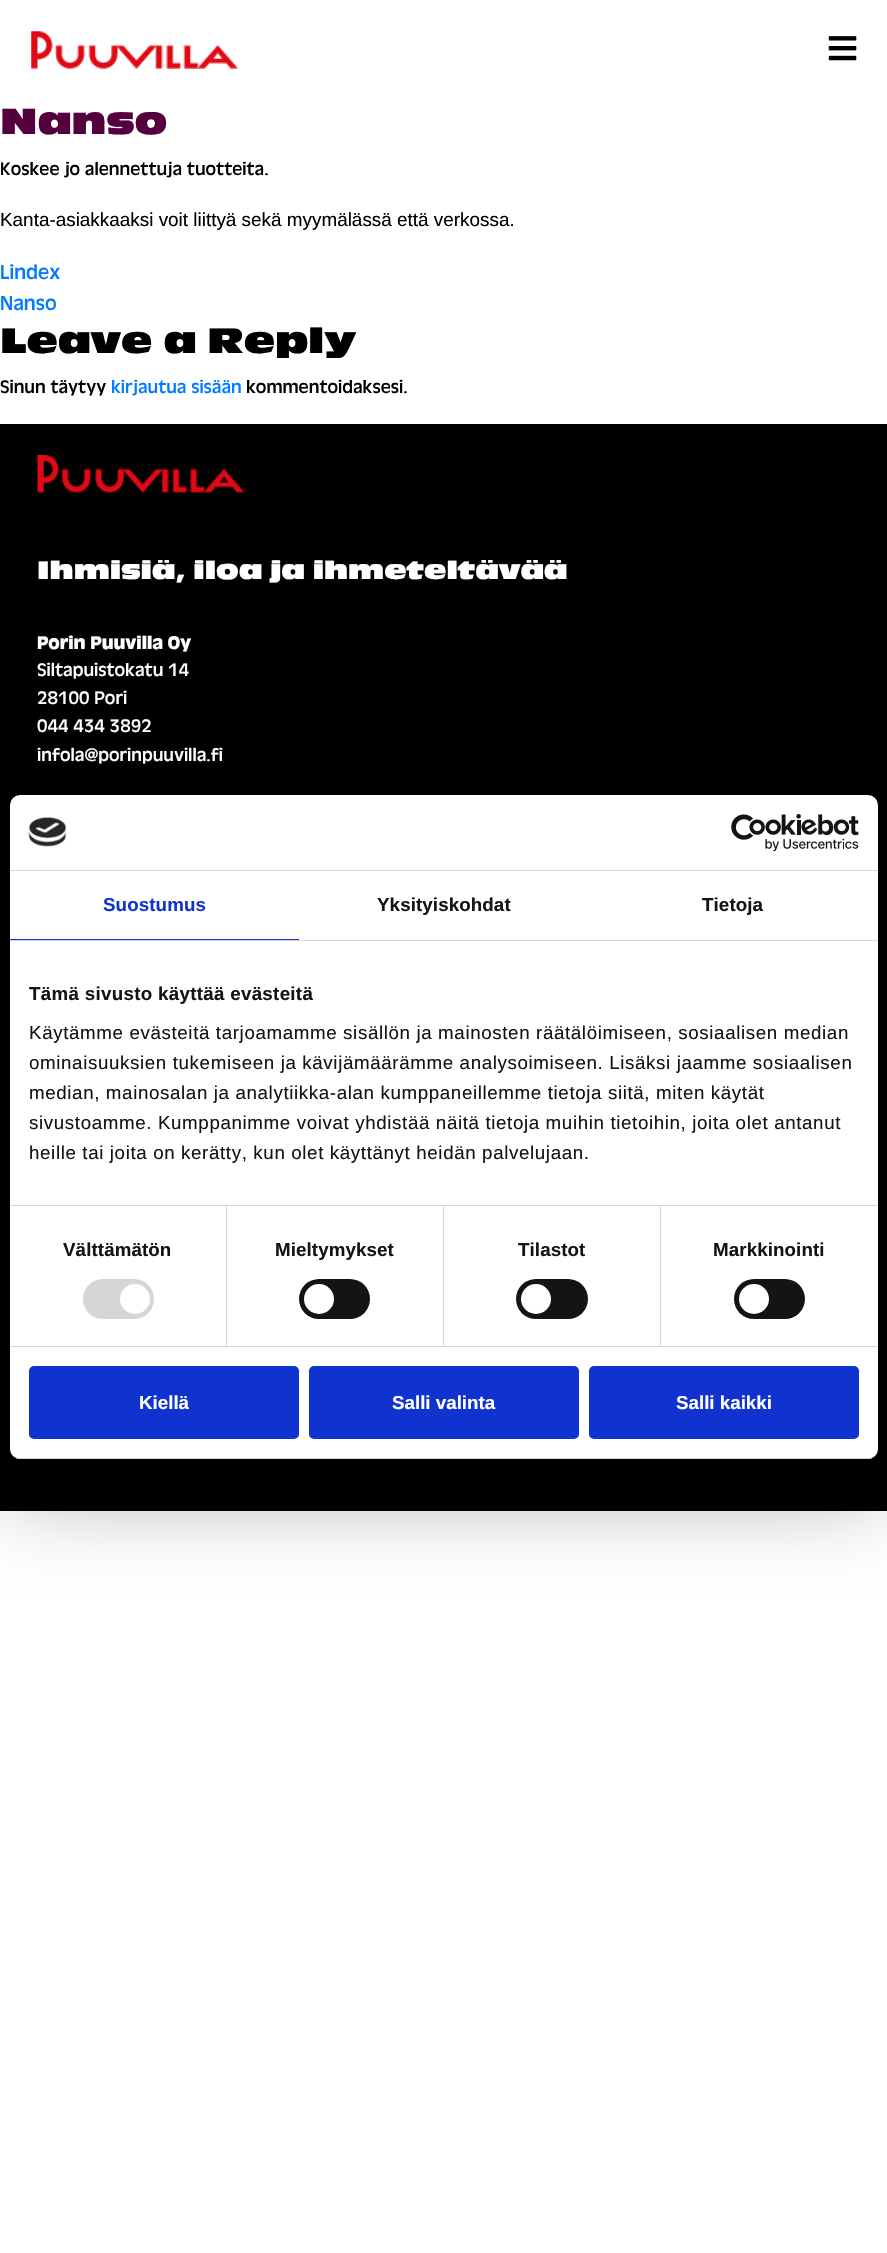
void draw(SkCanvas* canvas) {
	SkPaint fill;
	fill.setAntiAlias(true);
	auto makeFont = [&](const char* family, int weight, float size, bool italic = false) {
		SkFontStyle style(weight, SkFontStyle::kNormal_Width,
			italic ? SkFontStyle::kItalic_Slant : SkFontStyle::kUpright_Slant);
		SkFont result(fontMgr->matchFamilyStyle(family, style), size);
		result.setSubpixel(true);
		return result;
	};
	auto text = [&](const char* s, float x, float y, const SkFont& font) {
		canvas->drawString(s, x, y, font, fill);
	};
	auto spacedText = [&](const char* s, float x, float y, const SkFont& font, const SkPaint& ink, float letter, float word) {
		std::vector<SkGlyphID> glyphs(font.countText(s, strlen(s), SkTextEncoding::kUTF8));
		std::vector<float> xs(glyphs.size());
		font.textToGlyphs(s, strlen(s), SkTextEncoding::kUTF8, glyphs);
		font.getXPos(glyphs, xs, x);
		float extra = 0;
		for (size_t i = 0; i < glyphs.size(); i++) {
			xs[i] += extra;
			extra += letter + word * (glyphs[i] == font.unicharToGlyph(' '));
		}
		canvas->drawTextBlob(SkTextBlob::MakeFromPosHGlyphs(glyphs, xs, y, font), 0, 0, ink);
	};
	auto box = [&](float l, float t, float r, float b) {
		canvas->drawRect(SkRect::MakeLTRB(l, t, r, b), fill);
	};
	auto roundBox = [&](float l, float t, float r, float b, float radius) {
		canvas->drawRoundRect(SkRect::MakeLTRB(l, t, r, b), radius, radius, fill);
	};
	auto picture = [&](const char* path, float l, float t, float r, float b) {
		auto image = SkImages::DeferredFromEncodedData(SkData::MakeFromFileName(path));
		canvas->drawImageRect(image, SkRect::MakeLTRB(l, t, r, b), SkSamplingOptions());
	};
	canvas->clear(0xFFFFFFFF);
	picture("image0.png", 31, 31, 238, 69);
	picture("image1.png", 828, 36, 857, 61);
	fill.setColor(0xFF000000);
	box(0, 424, 887, 1511);
	picture("image2.png", 37, 455, 244, 493);
	fill.setColor(0x4D000000);
	fill.setMaskFilter(SkMaskFilter::MakeBlur(kNormal_SkBlurStyle, 42.5f));
	canvas->drawRoundRect(SkRect::MakeLTRB(10, 835, 878, 1499), 10, 10, fill);
	fill.setMaskFilter(nullptr);
	fill.setColor(0xFFFFFFFF);
	roundBox(10, 795, 878, 1459, 10);
	fill.setColor(0xFFD6D6D6);
	box(10, 870, 878, 871);
	picture("image3.png", 28, 817, 67, 847);
	picture("image4.png", 731, 814, 859, 851);
	box(10, 940, 878, 941);
	fill.setColor(0xFF1032CF);
	box(10, 939, 299, 940);
	fill.setColor(0xFFD6D6D6);
	box(10, 1205, 878, 1206);
	box(10, 1346, 878, 1347);
	box(226, 1206, 227, 1346);
	roundBox(83, 1279, 154, 1319, 20);
	fill.setColor(0xFFFFFFFF);
	canvas->drawCircle(135, 1299, 15, fill);
	fill.setColor(0xFFD6D6D6);
	box(443, 1206, 444, 1346);
	fill.setColor(0xFF141414);
	roundBox(299, 1279, 370, 1319, 20);
	fill.setColor(0xFFFFFFFF);
	canvas->drawCircle(319, 1299, 15, fill);
	fill.setColor(0xFFD6D6D6);
	box(660, 1206, 661, 1346);
	fill.setColor(0xFF141414);
	roundBox(516, 1279, 588, 1319, 20);
	fill.setColor(0xFFFFFFFF);
	canvas->drawCircle(536, 1299, 15, fill);
	fill.setColor(0xFF141414);
	roundBox(734, 1279, 805, 1319, 20);
	fill.setColor(0xFFFFFFFF);
	canvas->drawCircle(754, 1299, 15, fill);
	canvas->save();
	canvas->clipPath(SkPathBuilder().moveTo(20, 795).lineTo(868, 795).cubicTo(873.5f, 795, 878, 799.5f, 878, 805).lineTo(878, 1449).cubicTo(878, 1454.5f, 873.5f, 1459, 868, 1459).lineTo(20, 1459).cubicTo(14.5f, 1459, 10, 1454.5f, 10, 1449).lineTo(10, 805).cubicTo(10, 799.5f, 14.5f, 795, 20, 795).close().detach(), true);
	fill.setColor(0xFFD6D6D6);
	box(10, 1458, 878, 1459);
	canvas->restore();
	fill.setColor(0xFF1032CF);
	canvas->drawRoundRect(SkRect::MakeLTRB(30.5f, 1367.5f, 297.5f, 1437.5f), 3.5f, 3.5f, fill);
	fill.setStyle(SkPaint::kStroke_Style);
	fill.setStrokeWidth(3);
	canvas->drawRoundRect(SkRect::MakeLTRB(30.5f, 1367.5f, 297.5f, 1437.5f), 3.5f, 3.5f, fill);
	fill.setStyle(SkPaint::kFill_Style);
	canvas->drawRoundRect(SkRect::MakeLTRB(310.5f, 1367.5f, 577.5f, 1437.5f), 3.5f, 3.5f, fill);
	fill.setStyle(SkPaint::kStroke_Style);
	canvas->drawRoundRect(SkRect::MakeLTRB(310.5f, 1367.5f, 577.5f, 1437.5f), 3.5f, 3.5f, fill);
	fill.setStyle(SkPaint::kFill_Style);
	canvas->drawRoundRect(SkRect::MakeLTRB(590.5f, 1367.5f, 857.5f, 1437.5f), 3.5f, 3.5f, fill);
	fill.setStyle(SkPaint::kStroke_Style);
	canvas->drawRoundRect(SkRect::MakeLTRB(590.5f, 1367.5f, 857.5f, 1437.5f), 3.5f, 3.5f, fill);
	auto font1 = makeFont("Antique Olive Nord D", 900, 38);
	fill.setStyle(SkPaint::kFill_Style);
	fill.setColor(0xFF54003F);
	text("Nanso", 0, 134, font1);
	auto font2 = makeFont("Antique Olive", 400, 18.9f);
	fill.setColor(0xFF000000);
	text("Koskee jo alennettuja tuotteita.", 0, 175, font2);
	auto font3 = makeFont("Liberation Sans", 400, 18.9f);
	text("Kanta-asiakkaaksi voit liittyä sekä myymälässä että verkossa.", 0, 226, font3);
	auto font4 = makeFont("Antique Olive", 400, 21);
	fill.setColor(0xFF007BFF);
	text("Lindex", 0, 279, font4);
	text("Nanso", 0, 310, font4);
	auto font5 = makeFont("Antique Olive Nord D", 900, 36.75f);
	fill.setColor(0xFF000000);
	text("Leave a Reply", 0, 353, font5);
	text("Sinun täytyy", 0, 393, font2);
	fill.setColor(0xFF007BFF);
	text("kirjautua sisään", 111, 393, font2);
	fill.setColor(0xFF000000);
	text("kommentoidaksesi.", 246, 393, font2);
	auto font6 = makeFont("Antique Olive Nord D", 900, 26.25f);
	fill.setColor(0xFFFFFFFF);
	text("Ihmisiä, iloa ja ihmeteltävää", 37, 579, font6);
	auto font7 = makeFont("Antique Olive", 700, 18.9f);
	text("Porin Puuvilla Oy", 37, 649, font7);
	text("Siltapuistokatu 14", 37, 676, font2);
	text("28100 Pori", 37, 704, font2);
	text("044 434 3892", 37, 732, font2);
	text("infola@porinpuuvilla.fi", 37, 761, font2);
	auto font8 = makeFont("Liberation Sans", 700, 18.75f);
	fill.setColor(0xFF1032CF);
	spacedText("Suostumus", 103, 911, font8, fill, 0.1f, 0);
	fill.setColor(0xFF141414);
	spacedText("Yksityiskohdat", 377, 911, font8, fill, 0.1f, 0);
	spacedText("Tietoja", 702, 911, font8, fill, 0.1f, 0);
	spacedText("Tämä sivusto käyttää evästeitä", 29, 1000, font8, fill, 0.3f, 0);
	auto font9 = makeFont("Liberation Sans", 400, 18.75f);
	spacedText("Käytämme evästeitä tarjoamamme sisällön ja mainosten räätälöimiseen, sosiaalisen median", 29, 1039, font9, fill, 0.62f, 0);
	spacedText("ominaisuuksien tukemiseen ja kävijämäärämme analysoimiseen. Lisäksi jaamme sosiaalisen", 29, 1069, font9, fill, 0.62f, 0);
	spacedText("median, mainosalan ja analytiikka-alan kumppaneillemme tietoja siitä, miten käytät", 29, 1099, font9, fill, 0.62f, 0);
	spacedText("sivustoamme. Kumppanimme voivat yhdistää näitä tietoja muihin tietoihin, joita olet antanut", 29, 1129, font9, fill, 0.62f, 0);
	spacedText("heille tai joita on kerätty, kun olet käyttänyt heidän palvelujaan.", 29, 1159, font9, fill, 0.62f, 0);
	spacedText("Välttämätön", 63, 1256, font8, fill, 0.1f, 0);
	spacedText("Mieltymykset", 275, 1256, font8, fill, 0.1f, 0);
	spacedText("Tilastot", 518, 1256, font8, fill, 0.1f, 0);
	spacedText("Markkinointi", 713, 1256, font8, fill, 0.1f, 0);
	fill.setColor(0xFFFFFFFF);
	text("Kiellä", 139, 1409, font8);
	text("Salli valinta", 392, 1409, font8);
	text("Salli kaikki", 676, 1409, font8);
}
